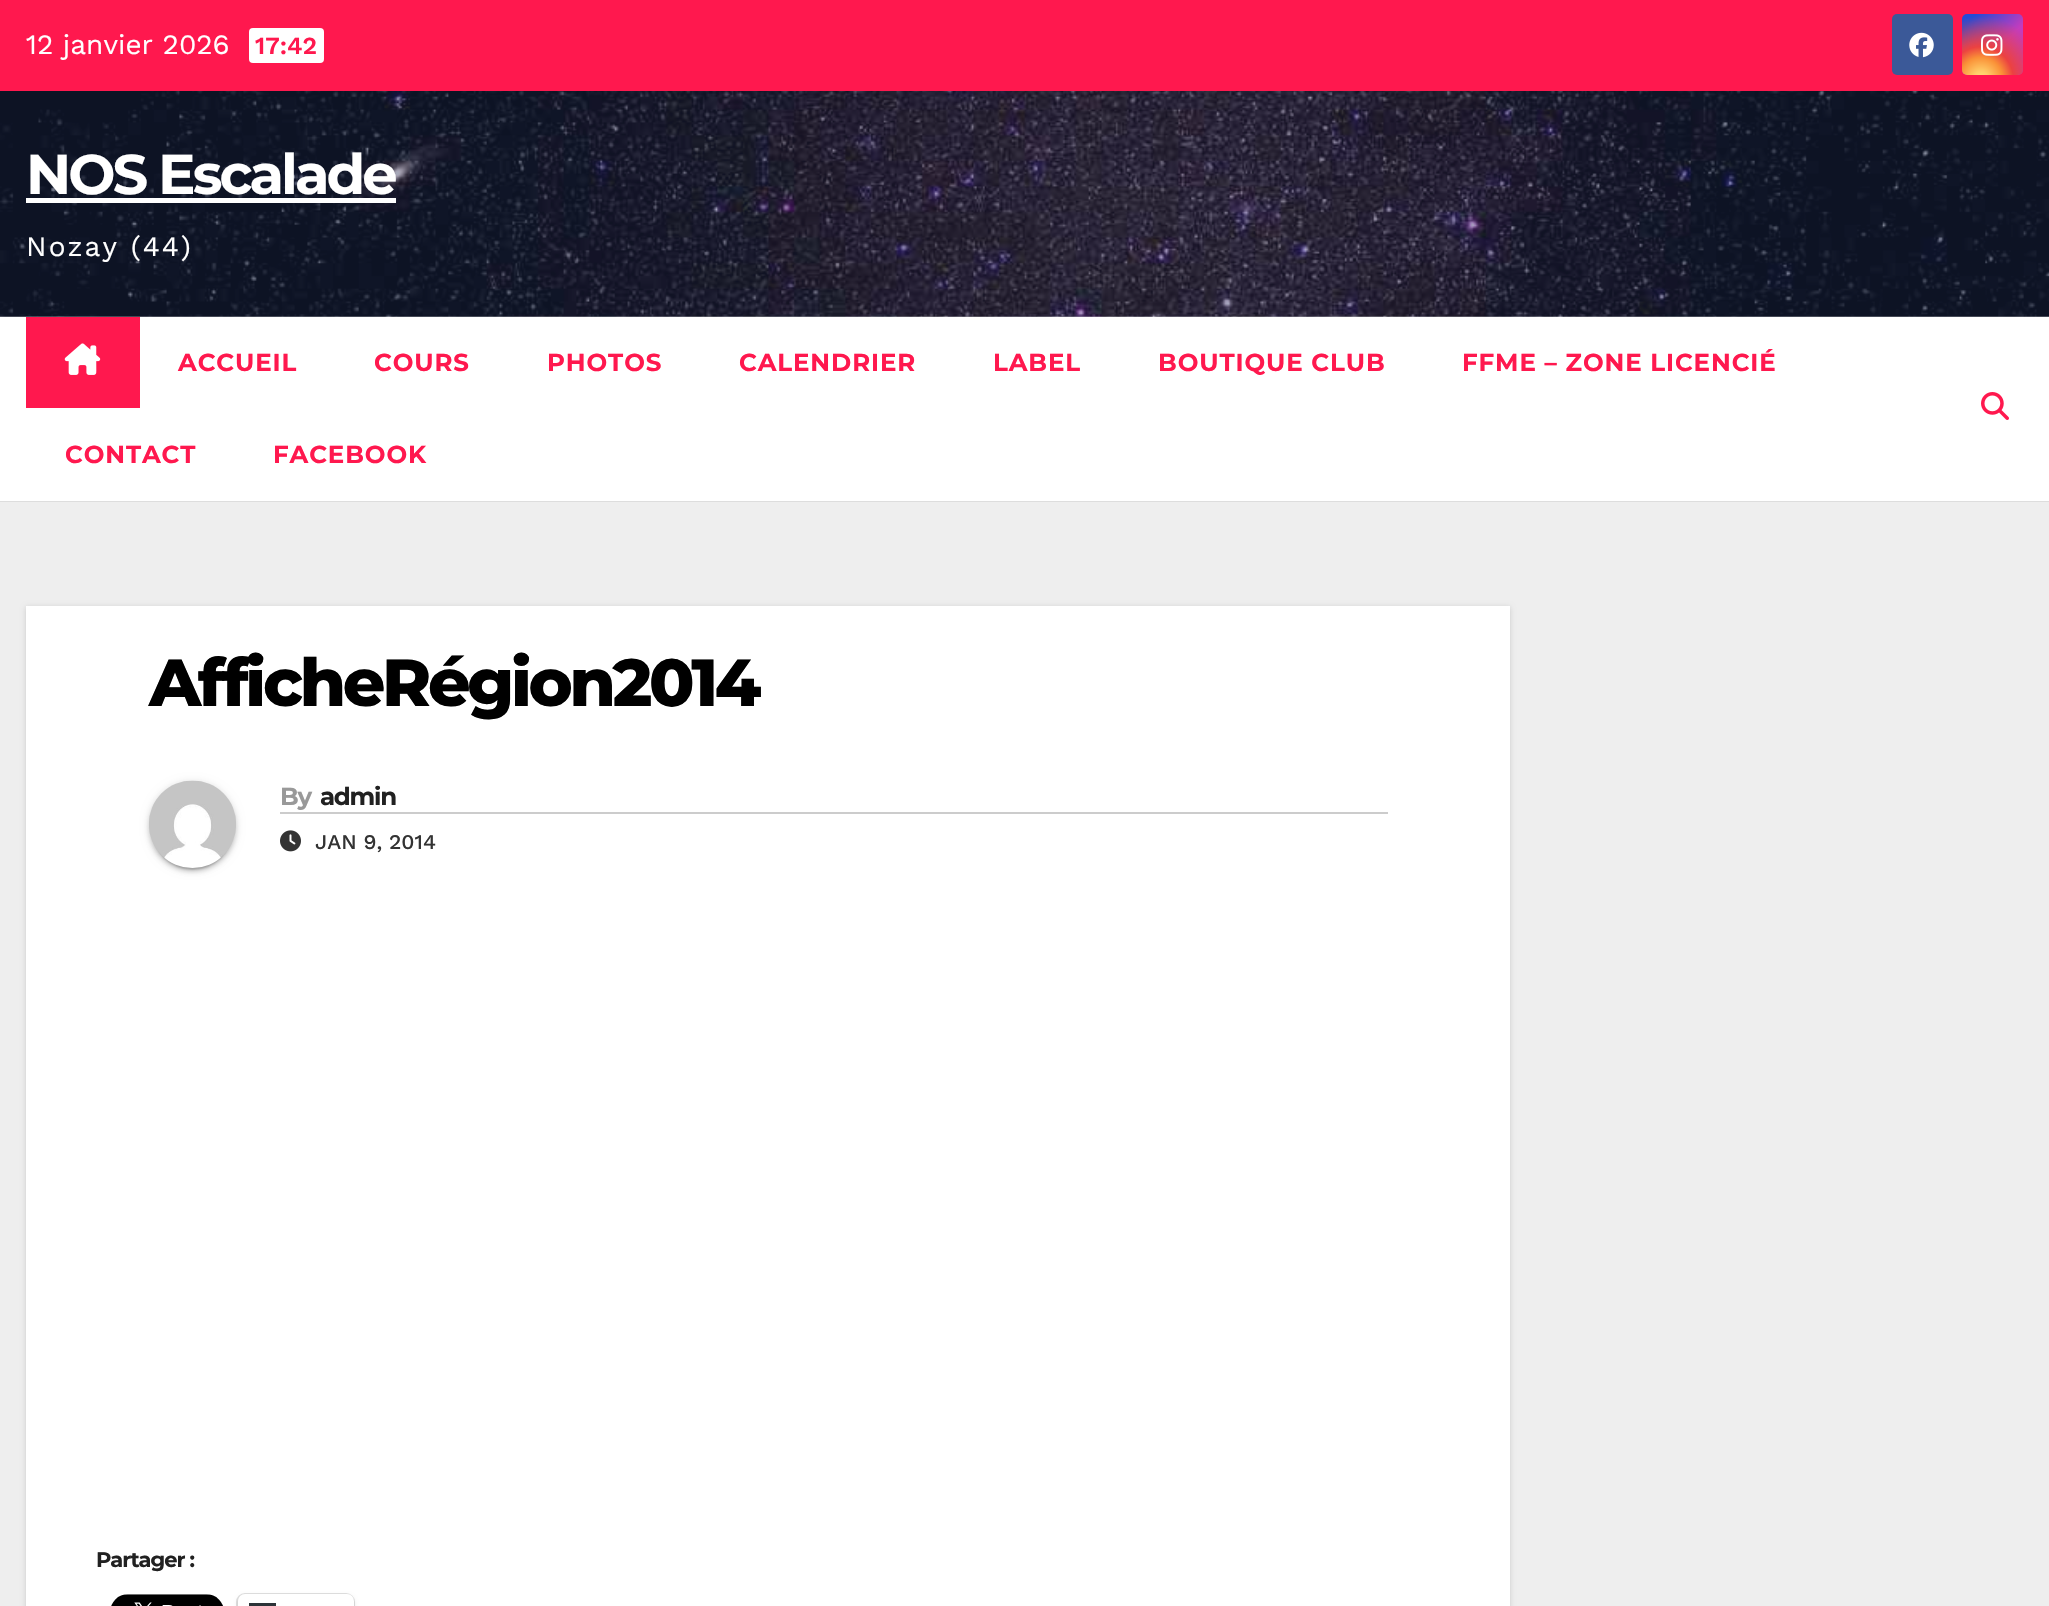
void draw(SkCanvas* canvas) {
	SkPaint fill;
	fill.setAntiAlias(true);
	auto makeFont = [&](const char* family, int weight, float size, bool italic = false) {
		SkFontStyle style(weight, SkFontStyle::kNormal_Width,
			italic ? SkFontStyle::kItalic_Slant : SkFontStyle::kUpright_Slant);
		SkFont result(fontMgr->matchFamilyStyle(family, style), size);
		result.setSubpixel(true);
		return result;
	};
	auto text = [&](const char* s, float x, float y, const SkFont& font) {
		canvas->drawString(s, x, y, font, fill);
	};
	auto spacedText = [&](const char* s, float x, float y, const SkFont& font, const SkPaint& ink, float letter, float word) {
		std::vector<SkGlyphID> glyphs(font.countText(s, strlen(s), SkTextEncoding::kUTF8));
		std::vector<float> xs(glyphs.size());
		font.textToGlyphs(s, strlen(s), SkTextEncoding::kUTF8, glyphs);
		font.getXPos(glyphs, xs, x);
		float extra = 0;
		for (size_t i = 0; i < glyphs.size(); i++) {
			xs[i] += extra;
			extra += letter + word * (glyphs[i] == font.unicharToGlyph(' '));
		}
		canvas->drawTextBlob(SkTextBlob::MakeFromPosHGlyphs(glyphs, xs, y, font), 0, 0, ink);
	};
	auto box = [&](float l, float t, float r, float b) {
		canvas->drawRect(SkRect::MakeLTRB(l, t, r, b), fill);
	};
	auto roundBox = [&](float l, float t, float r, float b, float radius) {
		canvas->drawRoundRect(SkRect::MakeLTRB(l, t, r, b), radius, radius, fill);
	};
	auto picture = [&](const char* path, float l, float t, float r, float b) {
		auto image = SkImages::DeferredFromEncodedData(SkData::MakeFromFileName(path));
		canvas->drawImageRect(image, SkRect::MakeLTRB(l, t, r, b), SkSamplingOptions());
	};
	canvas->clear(0xFFEEEEEE);
	fill.setColor(0xFFFF184E);
	box(0, 0, 2049, 91);
	fill.setColor(0xFFFFFFFF);
	roundBox(249, 28, 324, 63, 4);
	fill.setColor(0xFF3B5998);
	roundBox(1892, 14, 1953, 75, 5);
	picture("image0.png", 1909, 32, 1934, 58);
	{
		const SkColor colors[] = {0xFF234BD7, 0xFFC33CBE};
		const float stops[] = {0.12f, 0.58f};
		const SkPoint ends[] = {{1962, 14}, {2023, 75}};
		fill.setShader(SkGradientShader::MakeLinear(ends, colors, stops, 2, SkTileMode::kClamp));
		fill.setAlpha(255);
	}
	roundBox(1962, 14, 2023, 75, 5);
	{
		const SkColor colors[] = {0xFFFFE17D, 0xFFFFCD69, 0xFFFA9137, 0xFFEB4141, 0x00EB4141};
		const float stops[] = {0, 0.1f, 0.28f, 0.42f, 0.82f};
		fill.setShader(SkGradientShader::MakeRadial({1981, 79}, 77, colors, stops, 5, SkTileMode::kClamp));
		fill.setAlpha(255);
	}
	roundBox(1962, 14, 2023, 75, 5);
	picture("image1.png", 1981, 34, 2003, 56);
	picture("image2.png", 0, 91, 2049, 317);
	fill.setShader(nullptr);
	fill.setColor(0xFFFFFFFF);
	box(26, 198, 396, 203);
	fill.setColor(0xFFDDDDDD);
	box(0, 501, 2049, 502);
	fill.setColor(0xFFFFFFFF);
	box(0, 317, 2049, 501);
	fill.setColor(0xFFFF184E);
	box(26, 317, 140, 408);
	picture("image3.png", 64, 343, 101, 375);
	picture("image4.png", 1981, 392, 2009, 420);
	fill.setColor(0x26000000);
	fill.setMaskFilter(SkMaskFilter::MakeBlur(kNormal_SkBlurStyle, 2.5f));
	canvas->drawRect(SkRect::MakeLTRB(26, 607, 1510, 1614), fill);
	fill.setMaskFilter(nullptr);
	fill.setColor(0xFFFFFFFF);
	box(26, 606, 1510, 1606);
	fill.setColor(0x1F000000);
	fill.setMaskFilter(SkMaskFilter::MakeBlur(kNormal_SkBlurStyle, 4.5f));
	canvas->drawRoundRect(SkRect::MakeLTRB(149, 782, 236, 870), 43.5f, 43.5f, fill);
	fill.setMaskFilter(nullptr);
	fill.setColor(0x33000000);
	fill.setMaskFilter(SkMaskFilter::MakeBlur(kNormal_SkBlurStyle, 1));
	canvas->drawRoundRect(SkRect::MakeLTRB(152, 789, 233, 870), 40.5f, 40.5f, fill);
	fill.setMaskFilter(nullptr);
	fill.setColor(0x24000000);
	fill.setMaskFilter(SkMaskFilter::MakeBlur(kNormal_SkBlurStyle, 2));
	canvas->drawRoundRect(SkRect::MakeLTRB(149, 784, 236, 872), 43.5f, 43.5f, fill);
	fill.setMaskFilter(nullptr);
	picture("image5.png", 149, 780, 236, 868);
	fill.setColor(0xFFCCCCCC);
	box(280, 812, 1388, 814);
	picture("image6.png", 280, 830, 301, 852);
	picture("image7.png", 111, 1594, 223, 1606);
	fill.setStyle(SkPaint::kStroke_Style);
	fill.setStrokeWidth(2);
	fill.setColor(0xFFE0E0E0);
	canvas->drawRoundRect(SkRect::MakeLTRB(237, 1594, 354, 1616), 8, 8, fill);
	fill.setStyle(SkPaint::kFill_Style);
	fill.setColor(0x1F000000);
	fill.setMaskFilter(SkMaskFilter::MakeBlur(kNormal_SkBlurStyle, 2));
	canvas->drawRoundRect(SkRect::MakeLTRB(238, 1596, 354, 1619), 7, 7, fill);
	fill.setMaskFilter(nullptr);
	fill.setColor(0xFFFFFFFF);
	roundBox(238, 1594, 354, 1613, 7);
	fill.setColor(0xFF2C3338);
	box(249, 1603, 276, 1606);
	auto font1 = makeFont("Work Sans", 400, 28);
	fill.setColor(0xFFFFFFFF);
	text("12 janvier 2026", 26, 54, font1);
	auto font2 = makeFont("Work Sans", 600, 24.5f);
	fill.setColor(0xFFFF184E);
	text("17:42", 255, 54, font2);
	auto font3 = makeFont("Montserrat", 700, 56);
	fill.setColor(0xFFFFFFFF);
	spacedText("NOS Escalade", 26, 194, font3, fill, -3, 0);
	spacedText("Nozay (44)", 26, 256, font1, fill, 2.1f, 0);
	auto font4 = makeFont("Montserrat", 700, 24.5f);
	fill.setColor(0xFFFF184E);
	spacedText("ACCUEIL", 178, 371, font4, fill, 0.9f, 0);
	spacedText("COURS", 374, 371, font4, fill, 0.9f, 0);
	spacedText("PHOTOS", 547, 371, font4, fill, 0.9f, 0);
	spacedText("CALENDRIER", 739, 371, font4, fill, 0.9f, 0);
	spacedText("LABEL", 993, 371, font4, fill, 0.9f, 0);
	spacedText("BOUTIQUE CLUB", 1158, 371, font4, fill, 0.9f, 0);
	spacedText("FFME – ZONE LICENCIÉ", 1462, 371, font4, fill, 0.9f, 0);
	spacedText("CONTACT", 65, 463, font4, fill, 0.9f, 0);
	spacedText("FACEBOOK", 273, 463, font4, fill, 0.9f, 0);
	auto font5 = makeFont("Montserrat", 800, 66.5f);
	fill.setColor(0xFF000000);
	spacedText("AfficheRégion2014", 149, 706, font5, fill, -3.3f, 0);
	fill.setColor(0xFF999999);
	spacedText("By", 280, 805, font4, fill, -1.25f, 0);
	fill.setColor(0xFF212121);
	spacedText("admin", 320, 805, font4, fill, -1.25f, 0);
	auto font6 = makeFont("Work Sans", 500, 21);
	fill.setColor(0xFF333333);
	text("JAN 9, 2014", 315, 849, font6);
	auto font7 = makeFont("Montserrat", 700, 21);
	fill.setColor(0xFF212121);
	spacedText("Partager :", 96, 1567, font7, fill, -1, 0);
}
